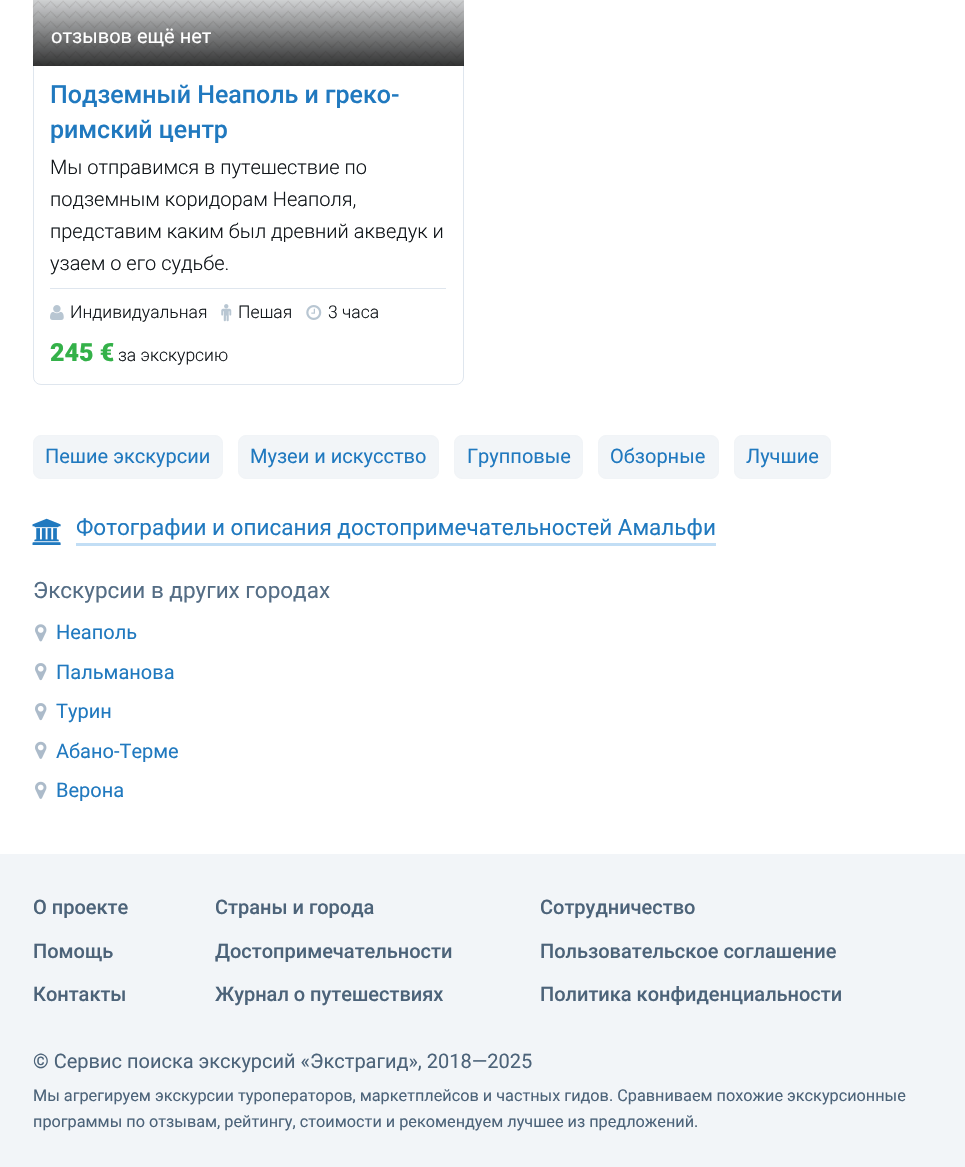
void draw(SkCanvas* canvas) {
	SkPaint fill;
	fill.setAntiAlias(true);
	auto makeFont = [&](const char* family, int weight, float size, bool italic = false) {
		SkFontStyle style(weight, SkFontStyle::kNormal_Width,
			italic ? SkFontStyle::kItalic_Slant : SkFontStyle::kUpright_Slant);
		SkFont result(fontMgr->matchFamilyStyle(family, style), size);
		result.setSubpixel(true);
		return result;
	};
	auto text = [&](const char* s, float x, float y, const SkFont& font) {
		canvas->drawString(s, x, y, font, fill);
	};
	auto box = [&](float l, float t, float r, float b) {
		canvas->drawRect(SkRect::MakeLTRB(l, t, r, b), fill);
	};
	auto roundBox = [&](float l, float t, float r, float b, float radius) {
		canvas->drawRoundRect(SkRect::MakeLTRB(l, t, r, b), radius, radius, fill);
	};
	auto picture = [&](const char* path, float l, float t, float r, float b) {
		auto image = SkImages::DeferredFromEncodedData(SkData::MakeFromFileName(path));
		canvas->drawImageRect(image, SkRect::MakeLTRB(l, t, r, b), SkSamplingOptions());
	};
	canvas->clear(0xFFFFFFFF);
	fill.setStyle(SkPaint::kStroke_Style);
	fill.setStrokeWidth(1);
	fill.setColor(0xFFDFE6EE);
	canvas->drawRoundRect(SkRect::MakeLTRB(33.5f, -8.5f, 463.5f, 384.5f), 7.5f, 7.5f, fill);
	fill.setStyle(SkPaint::kFill_Style);
	fill.setColor(0xFFF7F9FB);
	roundBox(33, -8, 464, 66, 8);
	picture("image0.png", 32, 0, 464, 66);
	{
		const SkColor colors[] = {0x00000000, 0xCC000000};
		const float stops[] = {0.7f, 1};
		const SkPoint ends[] = {{248, -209}, {248, 66}};
		fill.setShader(SkGradientShader::MakeLinear(ends, colors, stops, 2, SkTileMode::kClamp));
		fill.setAlpha(255);
	}
	box(33, 0, 464, 66);
	fill.setShader(nullptr);
	fill.setColor(0xFFDFE6EE);
	box(50, 288, 446, 289);
	picture("image1.png", 50, 305, 64, 320);
	picture("image2.png", 221, 304, 232, 322);
	picture("image3.png", 306, 305, 322, 320);
	fill.setColor(0xFFF2F5F8);
	canvas->drawRoundRect(SkRect::MakeLTRB(33.5f, 435.5f, 222.5f, 478.5f), 7.5f, 7.5f, fill);
	fill.setStyle(SkPaint::kStroke_Style);
	fill.setColor(0xFFF1F4F7);
	canvas->drawRoundRect(SkRect::MakeLTRB(33.5f, 435.5f, 222.5f, 478.5f), 7.5f, 7.5f, fill);
	fill.setStyle(SkPaint::kFill_Style);
	fill.setColor(0xFFF2F5F8);
	canvas->drawRoundRect(SkRect::MakeLTRB(238.5f, 435.5f, 438.5f, 478.5f), 7.5f, 7.5f, fill);
	fill.setStyle(SkPaint::kStroke_Style);
	fill.setColor(0xFFF1F4F7);
	canvas->drawRoundRect(SkRect::MakeLTRB(238.5f, 435.5f, 438.5f, 478.5f), 7.5f, 7.5f, fill);
	fill.setStyle(SkPaint::kFill_Style);
	fill.setColor(0xFFF2F5F8);
	canvas->drawRoundRect(SkRect::MakeLTRB(454.5f, 435.5f, 582.5f, 478.5f), 7.5f, 7.5f, fill);
	fill.setStyle(SkPaint::kStroke_Style);
	fill.setColor(0xFFF1F4F7);
	canvas->drawRoundRect(SkRect::MakeLTRB(454.5f, 435.5f, 582.5f, 478.5f), 7.5f, 7.5f, fill);
	fill.setStyle(SkPaint::kFill_Style);
	fill.setColor(0xFFF2F5F8);
	canvas->drawRoundRect(SkRect::MakeLTRB(598.5f, 435.5f, 718.5f, 478.5f), 7.5f, 7.5f, fill);
	fill.setStyle(SkPaint::kStroke_Style);
	fill.setColor(0xFFF1F4F7);
	canvas->drawRoundRect(SkRect::MakeLTRB(598.5f, 435.5f, 718.5f, 478.5f), 7.5f, 7.5f, fill);
	fill.setStyle(SkPaint::kFill_Style);
	fill.setColor(0xFFF2F5F8);
	canvas->drawRoundRect(SkRect::MakeLTRB(734.5f, 435.5f, 830.5f, 478.5f), 7.5f, 7.5f, fill);
	fill.setStyle(SkPaint::kStroke_Style);
	fill.setColor(0xFFF1F4F7);
	canvas->drawRoundRect(SkRect::MakeLTRB(734.5f, 435.5f, 830.5f, 478.5f), 7.5f, 7.5f, fill);
	picture("image4.png", 32, 518, 61, 545);
	fill.setStyle(SkPaint::kFill_Style);
	fill.setColor(0xFFC2DEF5);
	box(76, 543, 716, 546);
	picture("image5.png", 35, 624, 47, 642);
	picture("image6.png", 35, 663, 47, 681);
	picture("image6.png", 35, 703, 47, 721);
	picture("image7.png", 35, 741, 47, 759);
	picture("image7.png", 35, 781, 47, 799);
	fill.setColor(0xFFF2F5F8);
	box(0, 854, 965, 1167);
	auto font1 = makeFont("Roboto", 400, 20);
	fill.setColor(0xFFFFFFFF);
	text("отзывов ещё нет", 51, 43, font1);
	auto font2 = makeFont("Roboto", 500, 25);
	fill.setColor(0xFF2079BF);
	text("Подземный Неаполь и греко-", 50, 103, font2);
	text("римский центр", 50, 138, font2);
	auto font3 = makeFont("Roboto", 300, 20);
	fill.setColor(0xFF101519);
	text("Мы отправимся в путешествие по", 50, 174, font3);
	text("подземным коридорам Неаполя,", 50, 206, font3);
	text("представим каким был древний акведук и", 50, 238, font3);
	text("узаем о его судьбе.", 50, 270, font3);
	auto font4 = makeFont("Roboto", 300, 17.5f);
	text("Индивидуальная", 70, 318, font4);
	text("Пешая", 238, 318, font4);
	text("3 часа", 328, 318, font4);
	auto font5 = makeFont("Roboto", 900, 25);
	fill.setColor(0xFF34B149);
	text("245 €", 50, 361, font5);
	fill.setColor(0xFF101519);
	text("за экскурсию", 118, 361, font4);
	fill.setColor(0xFF2079BF);
	text("Пешие экскурсии", 45, 463, font1);
	text("Музеи и искусство", 250, 463, font1);
	text("Групповые", 467, 463, font1);
	text("Обзорные", 610, 463, font1);
	text("Лучшие", 746, 463, font1);
	auto font6 = makeFont("Roboto", 400, 22.5f);
	text("Фотографии и описания достопримечательностей Амальфи", 76, 535, font6);
	fill.setColor(0xFF546D85);
	text("Экскурсии в других городах", 33, 598, font6);
	fill.setColor(0xFF2079BF);
	text("Неаполь", 56, 639, font1);
	text("Пальманова", 56, 679, font1);
	text("Турин", 56, 718, font1);
	text("Абано-Терме", 56, 758, font1);
	text("Верона", 56, 797, font1);
	auto font7 = makeFont("Roboto", 500, 20);
	fill.setColor(0xFF4C6379);
	text("О проекте", 33, 914, font7);
	text("Помощь", 33, 958, font7);
	text("Контакты", 33, 1001, font7);
	text("Страны и города", 215, 914, font7);
	text("Достопримечательности", 215, 958, font7);
	text("Журнал о путешествиях", 215, 1001, font7);
	text("Сотрудничество", 540, 914, font7);
	text("Пользовательское соглашение", 540, 958, font7);
	text("Политика конфиденциальности", 540, 1001, font7);
	text("© Сервис поиска экскурсий «Экстрагид», 2018—2025", 33, 1068, font1);
	auto font8 = makeFont("Roboto", 400, 16.25f);
	text("Мы агрегируем экскурсии туроператоров, маркетплейсов и частных гидов. Сравниваем похожие экскурсионные", 33, 1101, font8);
	text("программы по отзывам, рейтингу, стоимости и рекомендуем лучшее из предложений.", 33, 1127, font8);
}
